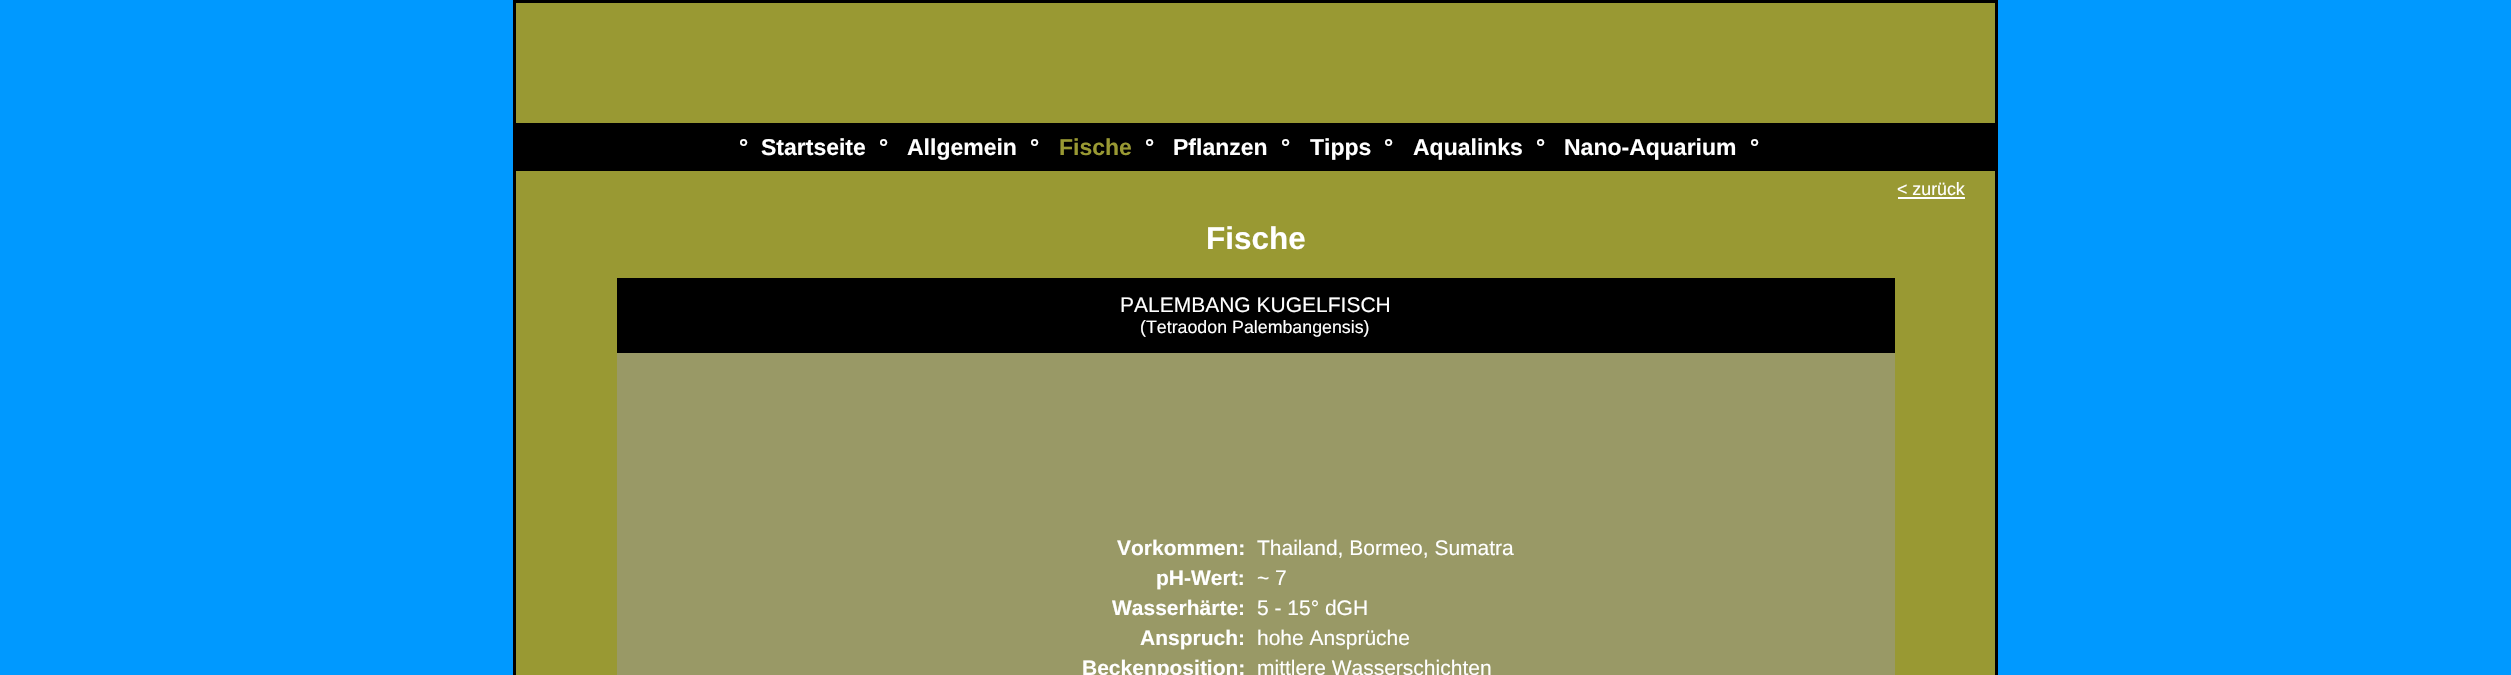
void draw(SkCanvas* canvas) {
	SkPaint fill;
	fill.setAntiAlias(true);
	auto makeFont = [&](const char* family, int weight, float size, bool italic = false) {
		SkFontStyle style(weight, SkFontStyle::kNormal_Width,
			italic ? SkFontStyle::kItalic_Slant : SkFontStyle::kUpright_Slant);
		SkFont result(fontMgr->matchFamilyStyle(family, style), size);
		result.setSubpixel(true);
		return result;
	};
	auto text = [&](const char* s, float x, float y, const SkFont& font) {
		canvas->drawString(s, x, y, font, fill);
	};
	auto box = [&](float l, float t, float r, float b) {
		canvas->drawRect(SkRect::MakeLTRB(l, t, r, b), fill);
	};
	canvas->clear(0xFF0099FF);
	fill.setColor(0xFF999933);
	canvas->drawRect(SkRect::MakeLTRB(514.5f, 1.5f, 1996.5f, 124.5f), fill);
	fill.setStyle(SkPaint::kStroke_Style);
	fill.setStrokeWidth(3);
	fill.setColor(0xFF000000);
	canvas->drawRect(SkRect::MakeLTRB(514.5f, 1.5f, 1996.5f, 124.5f), fill);
	fill.setStyle(SkPaint::kFill_Style);
	box(513, 126, 1998, 168);
	fill.setColor(0xFF999933);
	canvas->drawRect(SkRect::MakeLTRB(514.5f, 169.5f, 1996.5f, 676.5f), fill);
	fill.setStyle(SkPaint::kStroke_Style);
	fill.setColor(0xFF000000);
	canvas->drawRect(SkRect::MakeLTRB(514.5f, 169.5f, 1996.5f, 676.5f), fill);
	fill.setStyle(SkPaint::kFill_Style);
	fill.setColor(0xFFFFFFFF);
	box(1898, 197, 1965, 199);
	fill.setColor(0xFF000000);
	box(617, 278, 1895, 353);
	fill.setColor(0xFF999966);
	box(617, 353, 1895, 675);
	auto font1 = makeFont("Liberation Sans", 700, 23);
	fill.setColor(0xFFFFFFFF);
	text("°", 739, 155, font1);
	text("Startseite", 761, 155, font1);
	text("°", 879, 155, font1);
	text("Allgemein", 907, 155, font1);
	text("°", 1030, 155, font1);
	fill.setColor(0xFF999933);
	text("Fische", 1059, 155, font1);
	fill.setColor(0xFFFFFFFF);
	text("°", 1145, 155, font1);
	text("Pflanzen", 1173, 155, font1);
	text("°", 1281, 155, font1);
	text("Tipps", 1310, 155, font1);
	text("°", 1384, 155, font1);
	text("Aqualinks", 1413, 155, font1);
	text("°", 1536, 155, font1);
	text("Nano-Aquarium", 1564, 155, font1);
	text("°", 1750, 155, font1);
	auto font2 = makeFont("Liberation Sans", 400, 17.8f);
	text("< zurück", 1897, 195, font2);
	auto font3 = makeFont("Liberation Sans", 700, 31.5f);
	text("Fische", 1206, 249, font3);
	auto font4 = makeFont("Liberation Sans", 400, 21);
	text("PALEMBANG KUGELFISCH", 1120, 312, font4);
	text("(Tetraodon Palembangensis)", 1140, 333, font2);
	auto font5 = makeFont("Liberation Sans", 700, 21);
	text("Vorkommen:", 1117, 555, font5);
	text("Thailand, Bormeo, Sumatra", 1257, 555, font4);
	text("pH-Wert:", 1156, 585, font5);
	text("~ 7", 1257, 585, font4);
	text("Wasserhärte:", 1112, 615, font5);
	text("5 - 15° dGH", 1257, 615, font4);
	text("Anspruch:", 1140, 645, font5);
	text("hohe Ansprüche", 1257, 645, font4);
	text("Beckenposition:", 1082, 675, font5);
	text("mittlere Wasserschichten", 1257, 675, font4);
}
